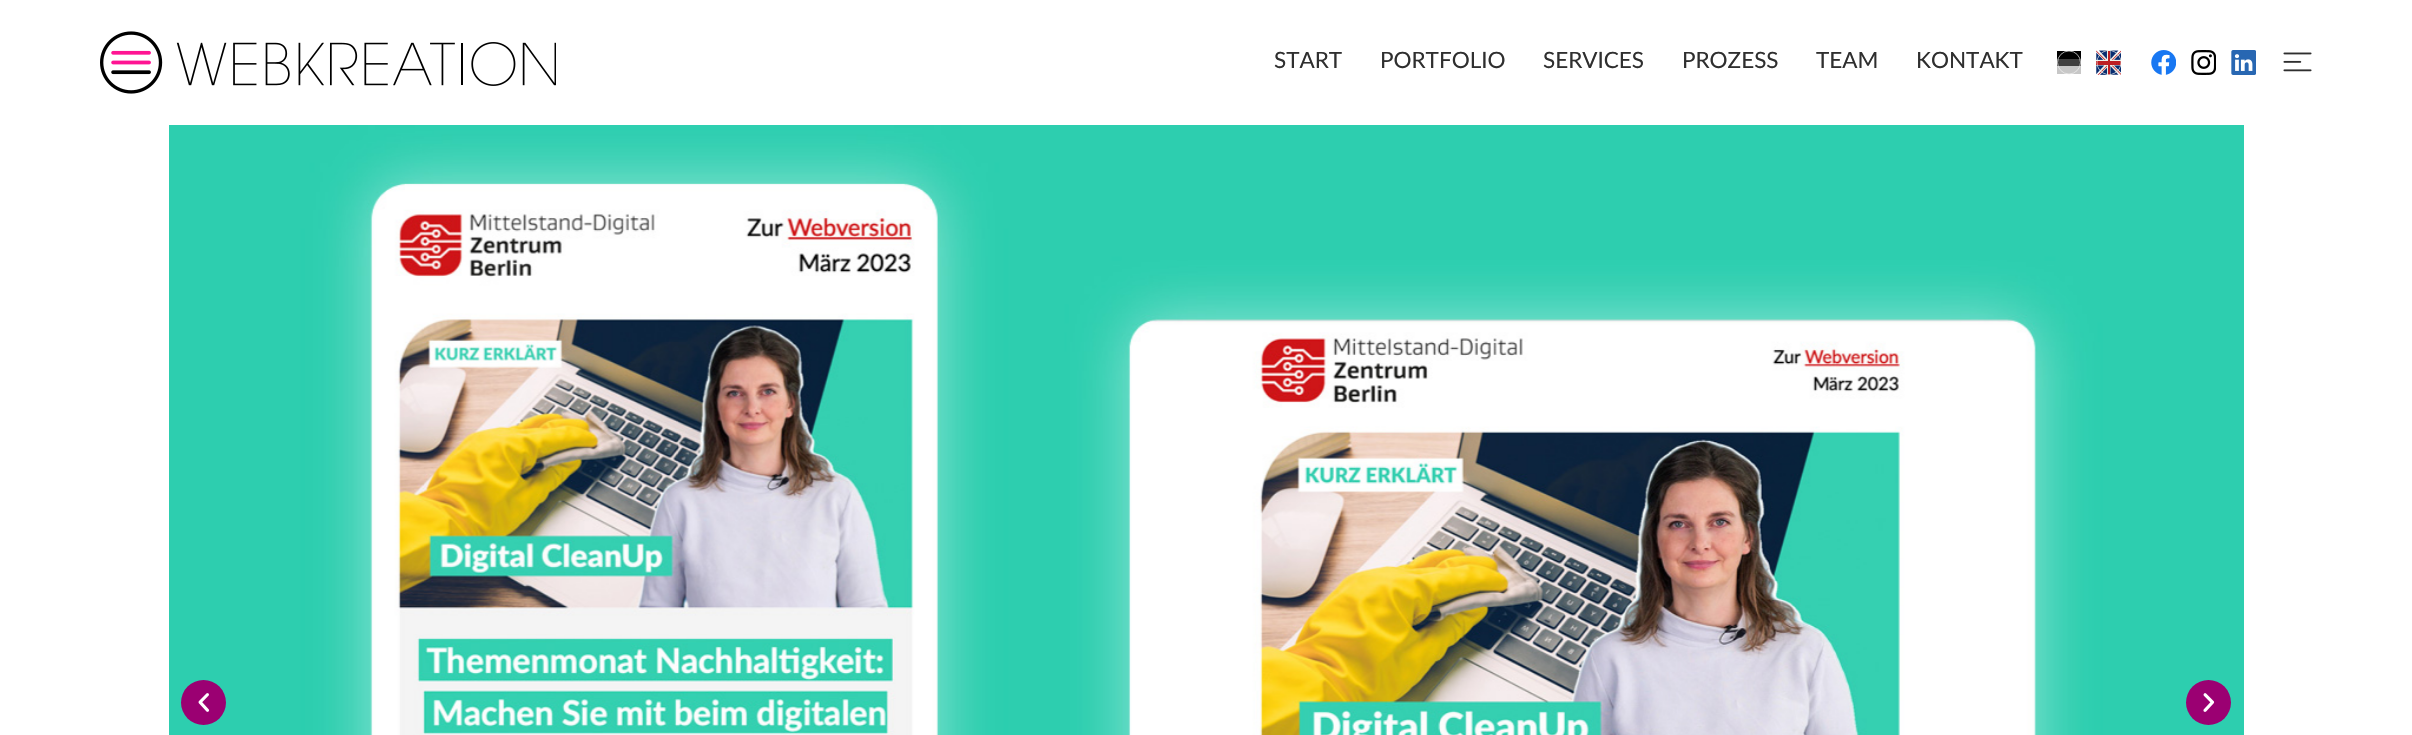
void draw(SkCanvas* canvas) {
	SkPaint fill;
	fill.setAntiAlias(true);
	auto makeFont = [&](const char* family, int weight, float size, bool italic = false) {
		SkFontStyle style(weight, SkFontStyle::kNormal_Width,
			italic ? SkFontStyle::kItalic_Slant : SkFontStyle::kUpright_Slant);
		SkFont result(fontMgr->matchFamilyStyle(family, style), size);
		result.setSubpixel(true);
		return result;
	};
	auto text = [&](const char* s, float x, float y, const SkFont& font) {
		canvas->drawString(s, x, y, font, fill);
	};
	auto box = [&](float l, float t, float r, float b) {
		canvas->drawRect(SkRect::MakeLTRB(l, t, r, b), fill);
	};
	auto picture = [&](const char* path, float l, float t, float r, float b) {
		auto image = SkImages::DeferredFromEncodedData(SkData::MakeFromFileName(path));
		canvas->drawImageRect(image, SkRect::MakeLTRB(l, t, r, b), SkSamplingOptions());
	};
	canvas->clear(0xFFFFFFFF);
	picture("image0.png", 100, 31, 556, 94);
	fill.setColor(0xFF000000);
	box(2057, 51, 2081, 59);
	fill.setColor(0xFF404040);
	box(2057, 59, 2081, 66);
	fill.setColor(0xFFC7C7C7);
	box(2057, 66, 2081, 74);
	fill.setStyle(SkPaint::kStroke_Style);
	fill.setStrokeWidth(0.7f);
	fill.setColor(0xFFF0F0F0);
	canvas->drawCircle(2069, 62.5f, 11.5f, fill);
	picture("image1.png", 2096, 50, 2121, 75);
	picture("image2.png", 2151, 50, 2176, 75);
	picture("image3.png", 2191, 50, 2216, 75);
	picture("image4.png", 2231, 50, 2256, 75);
	picture("image5.png", 2283, 52, 2312, 72);
	picture("image6.png", 169, 125, 2244, 735);
	fill.setStyle(SkPaint::kFill_Style);
	fill.setColor(0xFF9B0072);
	canvas->drawCircle(203.5f, 702.5f, 22.5f, fill);
	picture("image7.png", 198, 693, 210, 712);
	canvas->drawCircle(2208.5f, 702.5f, 22.5f, fill);
	picture("image8.png", 2203, 693, 2215, 712);
	auto font1 = makeFont("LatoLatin", 400, 22.5f);
	fill.setColor(0xFF2F2F2F);
	text("START", 1274, 68, font1);
	text("PORTFOLIO", 1380, 68, font1);
	text("SERVICES", 1543, 68, font1);
	text("PROZESS", 1682, 68, font1);
	text("TEAM", 1816, 68, font1);
	text("KONTAKT", 1916, 68, font1);
}
